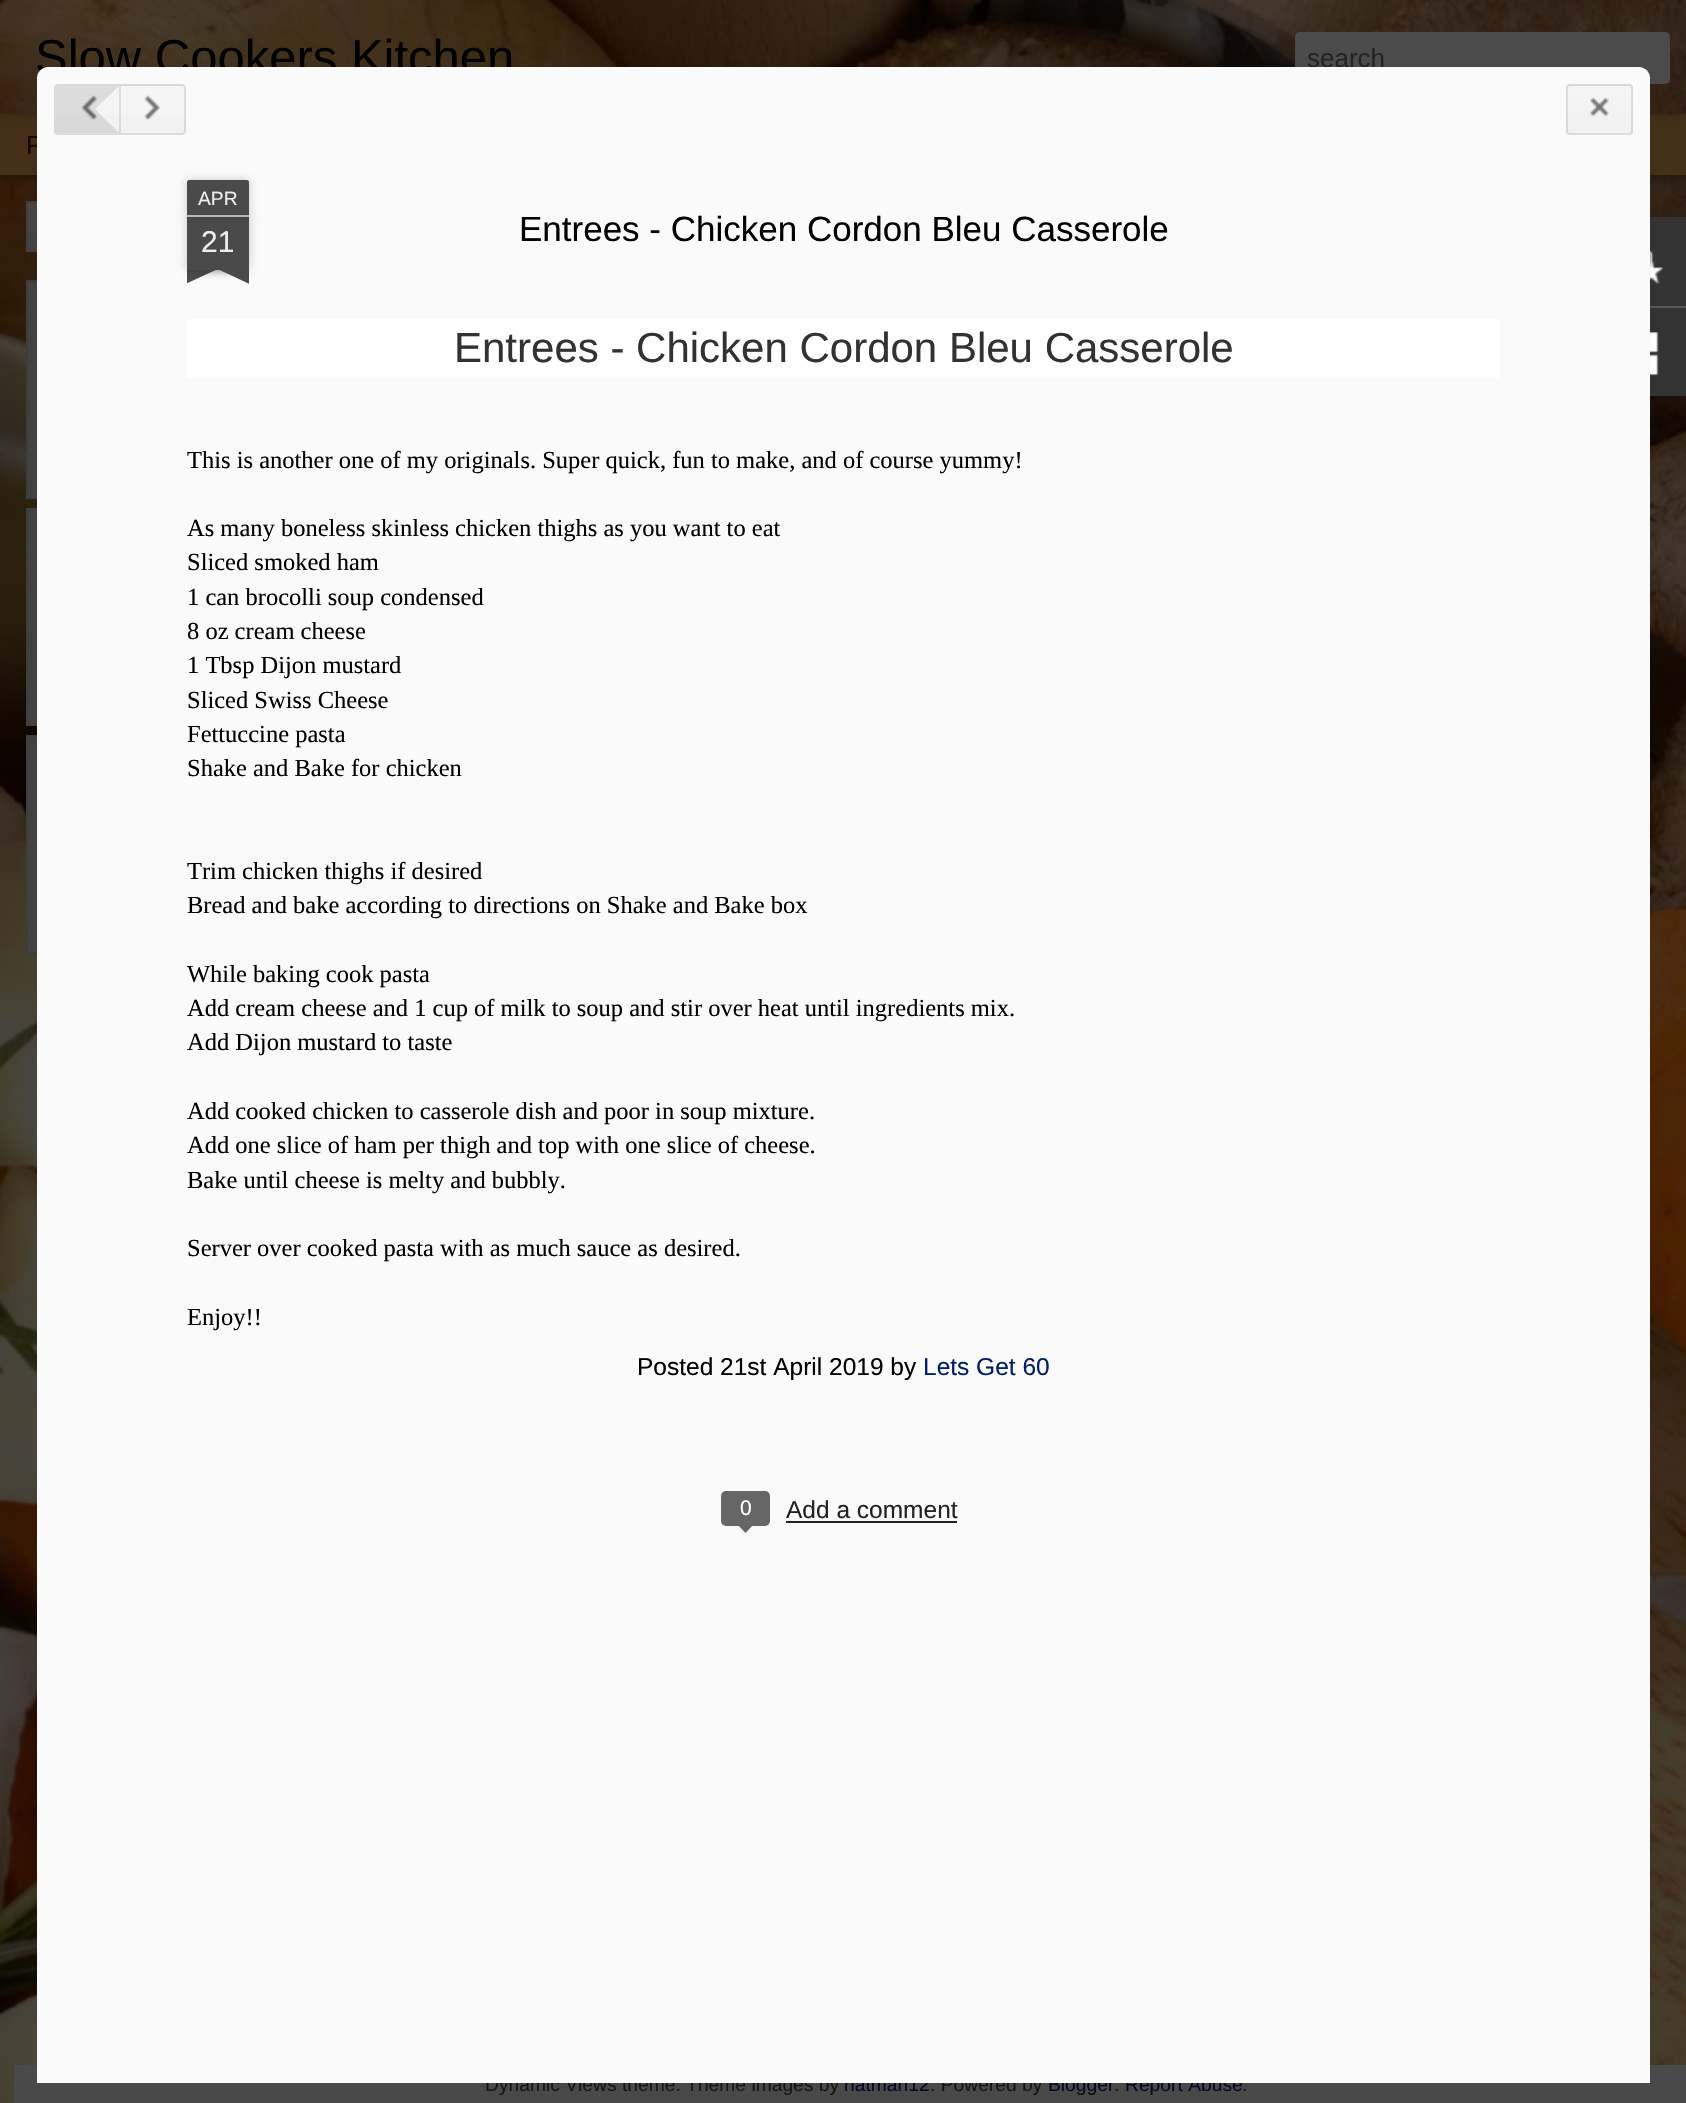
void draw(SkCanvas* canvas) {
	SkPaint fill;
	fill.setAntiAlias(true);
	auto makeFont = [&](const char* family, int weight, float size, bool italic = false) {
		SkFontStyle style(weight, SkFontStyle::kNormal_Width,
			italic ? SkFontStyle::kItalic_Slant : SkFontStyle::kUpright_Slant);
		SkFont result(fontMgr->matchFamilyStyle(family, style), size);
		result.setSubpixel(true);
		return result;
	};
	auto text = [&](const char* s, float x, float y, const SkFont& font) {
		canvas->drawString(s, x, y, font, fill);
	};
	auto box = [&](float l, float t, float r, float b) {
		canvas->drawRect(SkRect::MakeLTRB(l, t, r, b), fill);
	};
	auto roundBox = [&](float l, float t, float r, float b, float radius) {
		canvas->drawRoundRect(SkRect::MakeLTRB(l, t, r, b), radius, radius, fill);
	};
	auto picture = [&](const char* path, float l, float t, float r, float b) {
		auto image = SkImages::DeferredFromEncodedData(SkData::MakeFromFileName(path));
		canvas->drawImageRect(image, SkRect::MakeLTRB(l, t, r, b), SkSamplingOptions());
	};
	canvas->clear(0xFFFFFFFF);
	picture("image0.png", 0, 175, 1686, 2103);
	fill.setColor(0x80000000);
	fill.setMaskFilter(SkMaskFilter::MakeBlur(kNormal_SkBlurStyle, 7));
	canvas->drawRect(SkRect::MakeLTRB(0, 114, 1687, 175), fill);
	fill.setMaskFilter(nullptr);
	fill.setColor(0xFF443018);
	box(0, 114, 1686, 175);
	fill.setColor(0x4D000000);
	fill.setMaskFilter(SkMaskFilter::MakeBlur(kNormal_SkBlurStyle, 4.5f));
	canvas->drawRect(SkRect::MakeLTRB(0, 0, 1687, 114), fill);
	fill.setMaskFilter(nullptr);
	picture("image1.png", 0, 0, 1686, 114);
	fill.setColor(0xFF4B4B4B);
	roundBox(1295, 32, 1670, 84, 5);
	fill.setColor(0xCC474747);
	box(26, 201, 37, 252);
	{
		const SkColor colors[] = {0xCC474747, 0xCC434343};
		const float stops[] = {0, 1};
		const SkPoint ends[] = {{98, 156}, {98, 203}};
		fill.setShader(SkGradientShader::MakeLinear(ends, colors, stops, 2, SkTileMode::kClamp));
		fill.setAlpha(255);
	}
	box(26, 201, 37, 203);
	{
		const SkColor colors[] = {0xCC474747, 0xCC434343};
		const float stops[] = {0, 1};
		const SkPoint ends[] = {{98, 203}, {98, 250}};
		fill.setShader(SkGradientShader::MakeLinear(ends, colors, stops, 2, SkTileMode::kClamp));
		fill.setAlpha(255);
	}
	box(26, 203, 37, 250);
	{
		const SkColor colors[] = {0xCC474747, 0xCC434343};
		const float stops[] = {0, 1};
		const SkPoint ends[] = {{98, 250}, {98, 298}};
		fill.setShader(SkGradientShader::MakeLinear(ends, colors, stops, 2, SkTileMode::kClamp));
		fill.setAlpha(255);
	}
	box(26, 250, 37, 252);
	fill.setStyle(SkPaint::kStroke_Style);
	fill.setStrokeWidth(2);
	fill.setShader(nullptr);
	fill.setColor(0xCC3D3D3D);
	canvas->drawRect(SkRect::MakeLTRB(27, 202, 169, 251), fill);
	fill.setColor(0xFF3D3D3D);
	canvas->drawRect(SkRect::MakeLTRB(27, 281, 244, 498), fill);
	fill.setStyle(SkPaint::kFill_Style);
	fill.setColor(0xFF424242);
	box(28, 282, 37, 497);
	fill.setStyle(SkPaint::kStroke_Style);
	fill.setColor(0xFF3D3D3D);
	canvas->drawRect(SkRect::MakeLTRB(27, 509, 244, 725), fill);
	fill.setStyle(SkPaint::kFill_Style);
	fill.setColor(0xFF424242);
	box(28, 509, 37, 725);
	fill.setStyle(SkPaint::kStroke_Style);
	fill.setColor(0xFF3D3D3D);
	canvas->drawRect(SkRect::MakeLTRB(27, 736, 244, 953), fill);
	fill.setStyle(SkPaint::kFill_Style);
	fill.setColor(0xFF424242);
	box(28, 737, 37, 952);
	fill.setColor(0x4D000000);
	fill.setMaskFilter(SkMaskFilter::MakeBlur(kNormal_SkBlurStyle, 2.5f));
	canvas->drawRoundRect(SkRect::MakeLTRB(1600, 219, 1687, 397), 4, 4, fill);
	fill.setMaskFilter(nullptr);
	fill.setColor(0xFF333333);
	box(1650, 217, 1686, 306);
	picture("image6.png", 1650, 249, 1664, 284);
	box(1650, 308, 1686, 396);
	fill.setColor(0xFF585858);
	box(1650, 306, 1686, 308);
	picture("image7.png", 1650, 332, 1659, 376);
	picture("image2.png", 1650, 88, 1651, 2061);
	{
		const SkColor colors[] = {0xFF4A4A4A, 0xFF484848};
		const float stops[] = {0, 1};
		const SkPoint ends[] = {{866, 2065}, {866, 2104}};
		fill.setShader(SkGradientShader::MakeLinear(ends, colors, stops, 2, SkTileMode::kClamp));
		fill.setAlpha(255);
	}
	box(14, 2065, 1686, 2103);
	auto font1 = makeFont("Liberation Sans", 400, 49);
	fill.setShader(nullptr);
	fill.setColor(0xFF000000);
	text("Slow Cookers Kitchen", 35, 74, font1);
	auto font2 = makeFont("Liberation Sans", 400, 26);
	fill.setColor(0xFF232323);
	text("search", 1307, 67, font2);
	fill.setColor(0xFF1F0009);
	text("F", 26, 154, font2);
	auto font3 = makeFont("Liberation Sans", 400, 19.25f);
	fill.setColor(0xFF141414);
	text("Dynamic Views theme. Theme images by", 485, 2091, font3);
	fill.setColor(0xFF00091F);
	text("hatman12", 844, 2091, font3);
	fill.setColor(0xFF141414);
	text(". Powered by", 930, 2091, font3);
	fill.setColor(0xFF00091F);
	text("Blogger", 1048, 2091, font3);
	fill.setColor(0xFF141414);
	text(".", 1114, 2091, font3);
	fill.setColor(0xFF00091F);
	text("Report Abuse", 1125, 2091, font3);
	fill.setColor(0xFFFAFAFA);
	canvas->drawPath(SkPathBuilder().moveTo(48, 67).lineTo(1639, 67).cubicTo(1645, 67, 1650, 72, 1650, 78).lineTo(1650, 2083).lineTo(37, 2083).lineTo(37, 78).cubicTo(37, 72, 42, 67, 48, 67).close().detach(), fill);
	fill.setColor(0xFFF5F5F5);
	roundBox(1566, 84, 1633, 135, 4);
	canvas->save();
	canvas->clipPath(SkPathBuilder().moveTo(1570, 84).lineTo(1629, 84).cubicTo(1631, 84, 1633, 86, 1633, 88).lineTo(1633, 131).cubicTo(1633, 133, 1631, 135, 1629, 135).lineTo(1570, 135).cubicTo(1568, 135, 1566, 133, 1566, 131).lineTo(1566, 88).cubicTo(1566, 86, 1568, 84, 1570, 84).close().detach(), true);
	{
		const SkColor colors[] = {0xFFF5F5F5, 0xFFF1F1F1};
		const float stops[] = {0, 1};
		const SkPoint ends[] = {{1600, 86}, {1600, 133}};
		fill.setShader(SkGradientShader::MakeLinear(ends, colors, stops, 2, SkTileMode::kClamp));
		fill.setAlpha(255);
	}
	box(1566, 86, 1633, 133);
	{
		const SkColor colors[] = {0xFFF5F5F5, 0xFFF1F1F1};
		const float stops[] = {0, 1};
		const SkPoint ends[] = {{1600, 39}, {1600, 86}};
		fill.setShader(SkGradientShader::MakeLinear(ends, colors, stops, 2, SkTileMode::kClamp));
		fill.setAlpha(255);
	}
	box(1566, 84, 1633, 86);
	canvas->restore();
	fill.setStyle(SkPaint::kStroke_Style);
	fill.setShader(nullptr);
	fill.setColor(0x1A000000);
	canvas->drawRoundRect(SkRect::MakeLTRB(1567, 85, 1632, 134), 3, 3, fill);
	picture("image5.png", 1590, 97, 1609, 117);
	fill.setStyle(SkPaint::kFill_Style);
	fill.setColor(0xFFF5F5F5);
	canvas->drawPath(SkPathBuilder().moveTo(58, 84).lineTo(121, 84).lineTo(121, 135).lineTo(58, 135).cubicTo(56, 135, 54, 133, 54, 131).lineTo(54, 88).cubicTo(54, 86, 56, 84, 58, 84).close().detach(), fill);
	{
		const SkColor colors[] = {0xFFF5F5F5, 0xFFF1F1F1};
		const float stops[] = {0, 1};
		const SkPoint ends[] = {{88, 86}, {88, 133}};
		fill.setShader(SkGradientShader::MakeLinear(ends, colors, stops, 2, SkTileMode::kClamp));
		fill.setAlpha(255);
	}
	box(54, 115, 119, 133);
	fill.setShader(nullptr);
	fill.setColor(0x1A000000);
	canvas->drawPath(SkPathBuilder().moveTo(121, 135).lineTo(95, 109).lineTo(80, 109).lineTo(55, 134).lineTo(57, 135).close().detach(), fill);
	canvas->save();
	canvas->clipPath(SkPathBuilder().moveTo(58, 84).lineTo(121, 84).lineTo(121, 135).lineTo(58, 135).cubicTo(56, 135, 54, 133, 54, 131).lineTo(54, 88).cubicTo(54, 86, 56, 84, 58, 84).close().detach(), true);
	{
		const SkColor colors[] = {0xFFF5F5F5, 0xFFF1F1F1};
		const float stops[] = {0, 1};
		const SkPoint ends[] = {{88, 39}, {88, 86}};
		fill.setShader(SkGradientShader::MakeLinear(ends, colors, stops, 2, SkTileMode::kClamp));
		fill.setAlpha(255);
	}
	box(54, 84, 121, 86);
	canvas->restore();
	fill.setShader(nullptr);
	fill.setColor(0x1A000000);
	canvas->drawPath(SkPathBuilder().moveTo(58, 84).lineTo(121, 84).lineTo(95, 109).lineTo(80, 109).lineTo(55, 85).close().detach(), fill);
	fill.setColor(0xFFF5F5F5);
	canvas->drawPath(SkPathBuilder().moveTo(119, 84).lineTo(182, 84).cubicTo(184, 84, 186, 86, 186, 88).lineTo(186, 131).cubicTo(186, 133, 184, 135, 182, 135).lineTo(119, 135).close().detach(), fill);
	{
		const SkColor colors[] = {0xFFF5F5F5, 0xFFF1F1F1};
		const float stops[] = {0, 1};
		const SkPoint ends[] = {{152, 86}, {152, 133}};
		fill.setShader(SkGradientShader::MakeLinear(ends, colors, stops, 2, SkTileMode::kClamp));
		fill.setAlpha(255);
	}
	box(119, 115, 186, 133);
	canvas->save();
	canvas->clipPath(SkPathBuilder().moveTo(119, 84).lineTo(182, 84).cubicTo(184, 84, 186, 86, 186, 88).lineTo(186, 131).cubicTo(186, 133, 184, 135, 182, 135).lineTo(119, 135).close().detach(), true);
	{
		const SkColor colors[] = {0xFFF5F5F5, 0xFFF1F1F1};
		const float stops[] = {0, 1};
		const SkPoint ends[] = {{152, 39}, {152, 86}};
		fill.setShader(SkGradientShader::MakeLinear(ends, colors, stops, 2, SkTileMode::kClamp));
		fill.setAlpha(255);
	}
	box(119, 84, 186, 86);
	canvas->restore();
	fill.setStyle(SkPaint::kStroke_Style);
	fill.setShader(nullptr);
	fill.setColor(0x1A000000);
	canvas->drawPath(SkPathBuilder().moveTo(120, 85).lineTo(182, 85).cubicTo(183.5f, 85, 185, 86.5f, 185, 88).lineTo(185, 131).cubicTo(185, 132.5f, 183.5f, 134, 182, 134).lineTo(120, 134).close().detach(), fill);
	picture("image4.png", 144, 95, 161, 120);
	picture("image3.png", 81, 95, 98, 120);
	fill.setStyle(SkPaint::kFill_Style);
	canvas->drawPath(SkPathBuilder().moveTo(55, 134).lineTo(80, 109).lineTo(55, 85).lineTo(54, 87).lineTo(54, 132).close().detach(), fill);
	auto font4 = makeFont("Liberation Sans", 400, 24.5f);
	fill.setColor(0xFF232323);
	text("Add a comment", 786, 1518, font4);
	fill.setColor(0xFF222222);
	box(786, 1521, 957, 1523);
	fill.setColor(0xFF666666);
	canvas->drawRoundRect(SkRect::MakeLTRB(722, 1492, 769, 1525), 4, 4, fill);
	fill.setStyle(SkPaint::kStroke_Style);
	canvas->drawRoundRect(SkRect::MakeLTRB(722, 1492, 769, 1525), 4, 4, fill);
	fill.setStyle(SkPaint::kFill_Style);
	canvas->drawPath(SkPathBuilder().moveTo(737, 1524).lineTo(754, 1524).lineTo(745.5f, 1533).close().detach(), fill);
	auto font5 = makeFont("Liberation Sans", 400, 21);
	fill.setColor(0xFFFFFFFF);
	text("0", 740, 1515, font5);
	auto font6 = makeFont("Liberation Sans", 400, 35);
	fill.setColor(0xFF000000);
	text("Entrees - Chicken Cordon Bleu Casserole", 519, 241, font6);
	fill.setColor(0x33000000);
	fill.setMaskFilter(SkMaskFilter::MakeBlur(kNormal_SkBlurStyle, 4.5f));
	canvas->drawRect(SkRect::MakeLTRB(187, 217, 249, 270), fill);
	fill.setMaskFilter(nullptr);
	fill.setColor(0xFF4A4A4A);
	box(187, 217, 249, 270);
	canvas->save();
	canvas->clipRect(SkRect::MakeLTRB(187, 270, 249, 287));
	fill.setColor(0x33000000);
	fill.setMaskFilter(SkMaskFilter::MakeBlur(kNormal_SkBlurStyle, 4.5f));
	canvas->drawRect(SkRect::MakeLTRB(172, 252, 259, 270), fill);
	fill.setMaskFilter(nullptr);
	canvas->restore();
	canvas->save();
	canvas->clipRect(SkRect::MakeLTRB(187, 270, 249, 287));
	fill.setColor(0xFF4A4A4A);
	canvas->drawPath(SkPathBuilder().moveTo(172, 271).lineTo(251, 234).lineTo(259, 250).lineTo(179, 287).close().detach(), fill);
	canvas->restore();
	canvas->save();
	canvas->clipRect(SkRect::MakeLTRB(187, 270, 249, 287));
	fill.setColor(0x33000000);
	fill.setMaskFilter(SkMaskFilter::MakeBlur(kNormal_SkBlurStyle, 4.5f));
	canvas->drawRect(SkRect::MakeLTRB(177, 252, 264, 270), fill);
	fill.setMaskFilter(nullptr);
	canvas->restore();
	canvas->save();
	canvas->clipRect(SkRect::MakeLTRB(187, 270, 249, 287));
	fill.setColor(0xFF4A4A4A);
	canvas->drawPath(SkPathBuilder().moveTo(185, 234).lineTo(264, 271).lineTo(256, 287).lineTo(177, 250).close().detach(), fill);
	canvas->restore();
	fill.setColor(0x33000000);
	fill.setMaskFilter(SkMaskFilter::MakeBlur(kNormal_SkBlurStyle, 4.5f));
	canvas->drawRoundRect(SkRect::MakeLTRB(187, 180, 249, 217), 2, 2, fill);
	fill.setMaskFilter(nullptr);
	fill.setColor(0xFF4A4A4A);
	canvas->drawPath(SkPathBuilder().moveTo(189, 180).lineTo(247, 180).cubicTo(248, 180, 249, 181, 249, 182).lineTo(249, 217).lineTo(187, 217).lineTo(187, 182).cubicTo(187, 181, 188, 180, 189, 180).close().detach(), fill);
	fill.setColor(0xFFEEEEEE);
	text("APR", 198, 205, font3);
	fill.setColor(0xFFB7B7B7);
	box(187, 215, 249, 217);
	auto font7 = makeFont("Liberation Sans", 400, 30);
	fill.setColor(0xFFEEEEEE);
	text("21", 201, 252, font7);
	fill.setColor(0xFF001E67);
	text("Lets Get 60", 923, 1375, font4);
	fill.setColor(0xFF000000);
	text("Posted 21st April 2019 by", 637, 1375, font4);
	auto font8 = makeFont("Liberation Serif", 400, 24.5f);
	text("Enjoy!!", 187, 1325, font8);
	text("Server over cooked pasta with as much sauce as desired.", 187, 1256, font8);
	text("Bake until cheese is melty and bubbly.", 187, 1188, font8);
	text("Add one slice of ham per thigh and top with one slice of cheese.", 187, 1153, font8);
	text("Add cooked chicken to casserole dish and poor in soup mixture.", 187, 1119, font8);
	text("Add Dijon mustard to taste", 187, 1050, font8);
	text("Add cream cheese and 1 cup of milk to soup and stir over heat until ingredients mix.", 187, 1016, font8);
	text("While baking cook pasta", 187, 982, font8);
	text("Bread and bake according to directions on Shake and Bake box", 187, 913, font8);
	text("Trim chicken thighs if desired", 187, 879, font8);
	text("Shake and Bake for chicken", 187, 776, font8);
	text("Fettuccine pasta", 187, 742, font8);
	text("Sliced Swiss Cheese", 187, 708, font8);
	text("1 Tbsp Dijon mustard", 187, 673, font8);
	text("8 oz cream cheese", 187, 639, font8);
	text("1 can brocolli soup condensed", 187, 605, font8);
	text("Sliced smoked ham", 187, 570, font8);
	text("As many boneless skinless chicken thighs as you want to eat", 187, 536, font8);
	text("This is another one of my originals. Super quick, fun to make, and of course yummy!", 187, 468, font8);
	fill.setColor(0xFFFFFFFF);
	box(187, 319, 1500, 378);
	auto font9 = makeFont("Liberation Sans", 400, 42);
	fill.setColor(0xFF323232);
	text("Entrees - Chicken Cordon Bleu Casserole", 454, 362, font9);
	fill.setColor(0xFF141414);
	text(".", 1242, 2091, font3);
}
